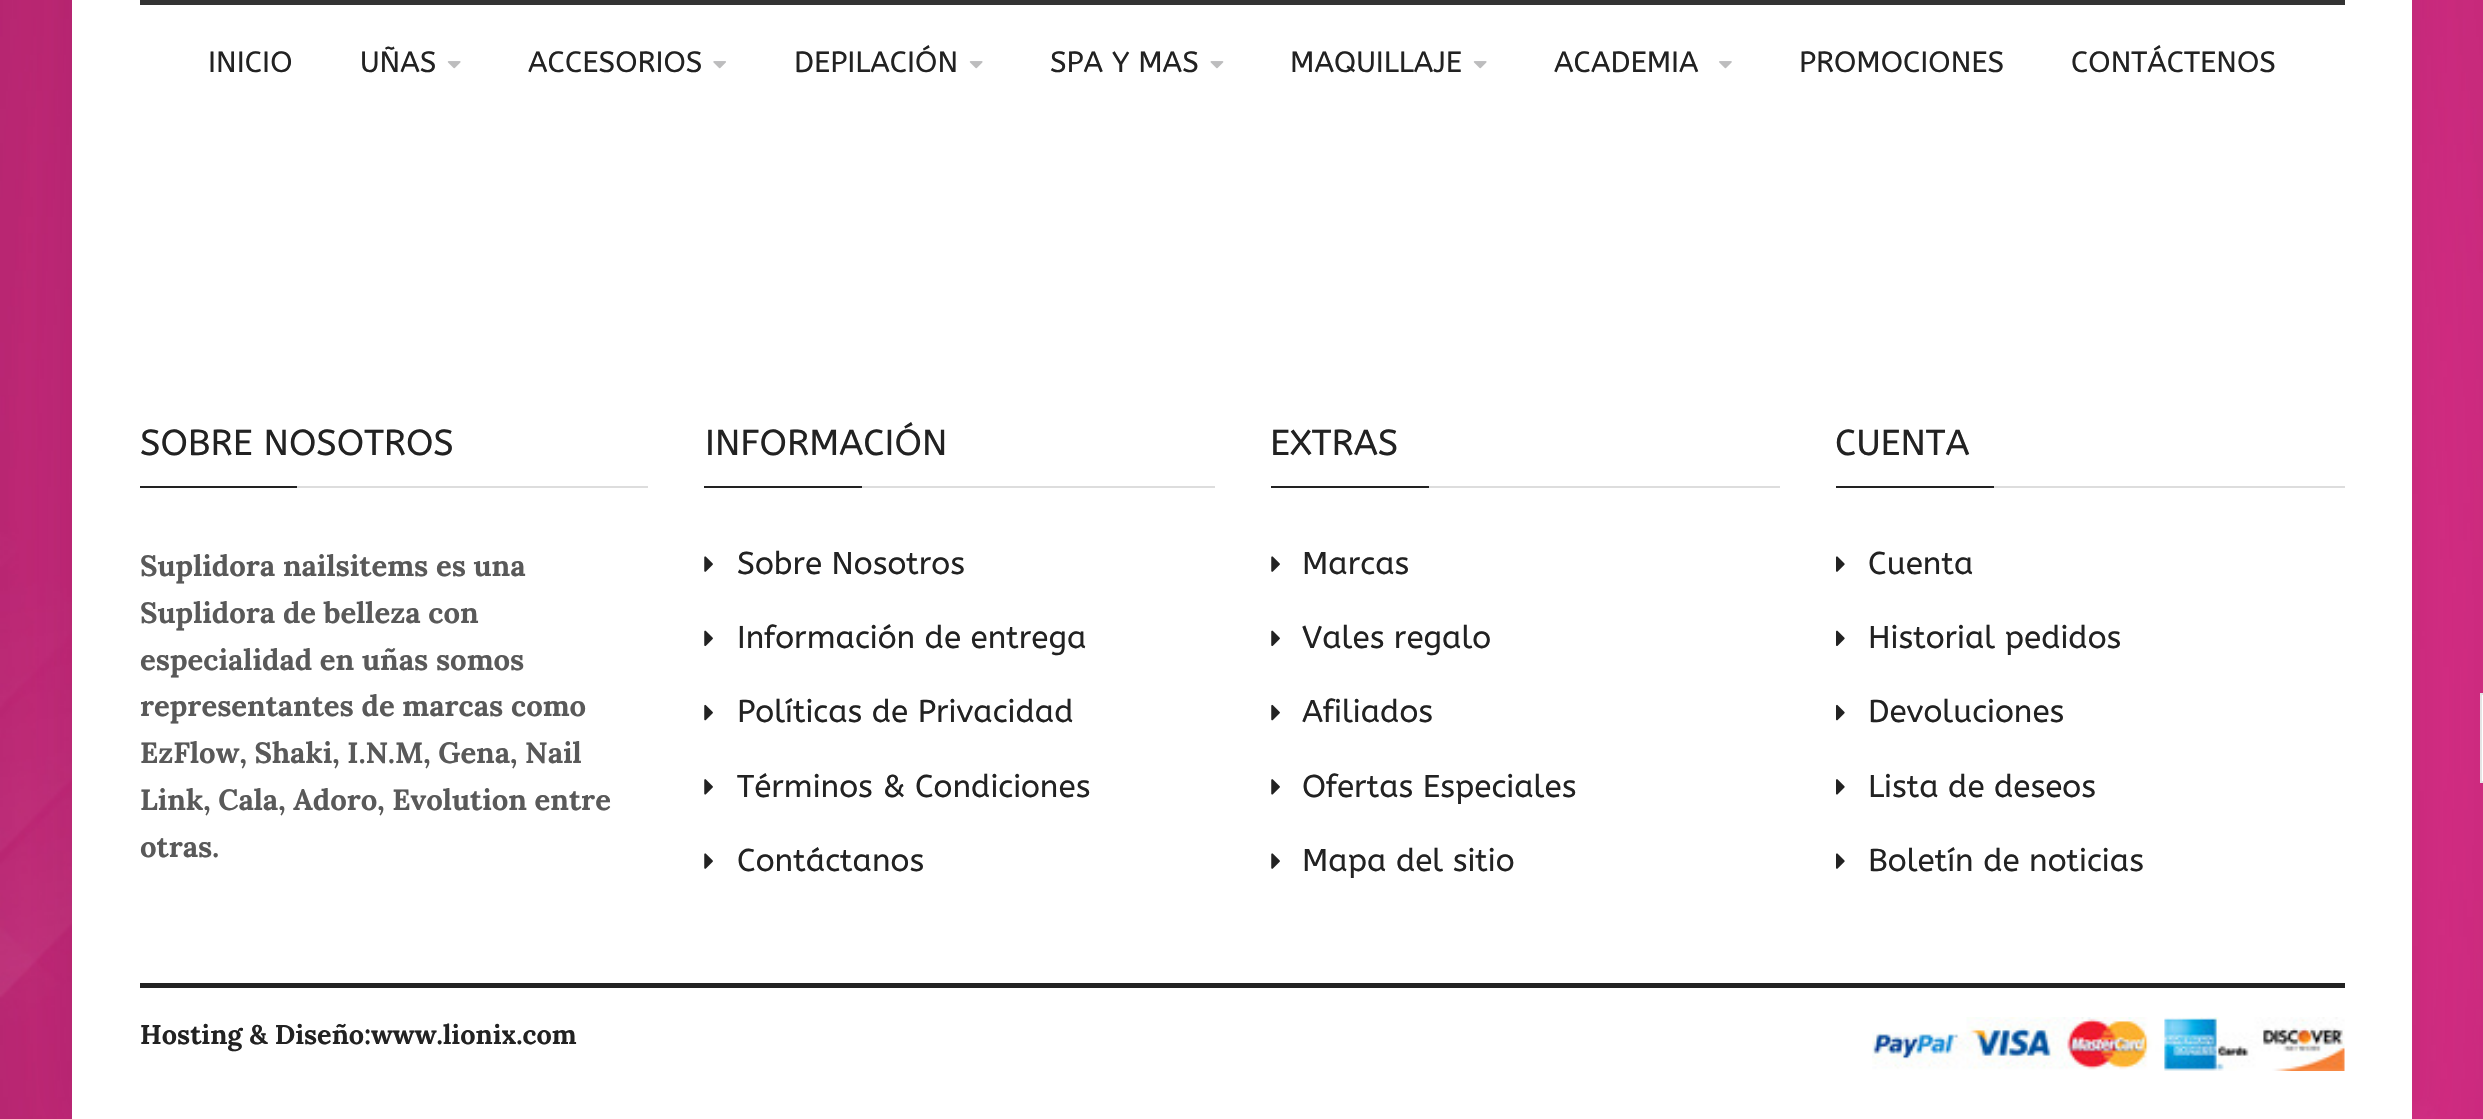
void draw(SkCanvas* canvas) {
	SkPaint fill;
	fill.setAntiAlias(true);
	auto makeFont = [&](const char* family, int weight, float size, bool italic = false) {
		SkFontStyle style(weight, SkFontStyle::kNormal_Width,
			italic ? SkFontStyle::kItalic_Slant : SkFontStyle::kUpright_Slant);
		SkFont result(fontMgr->matchFamilyStyle(family, style), size);
		result.setSubpixel(true);
		return result;
	};
	auto text = [&](const char* s, float x, float y, const SkFont& font) {
		canvas->drawString(s, x, y, font, fill);
	};
	auto box = [&](float l, float t, float r, float b) {
		canvas->drawRect(SkRect::MakeLTRB(l, t, r, b), fill);
	};
	auto picture = [&](const char* path, float l, float t, float r, float b) {
		auto image = SkImages::DeferredFromEncodedData(SkData::MakeFromFileName(path));
		canvas->drawImageRect(image, SkRect::MakeLTRB(l, t, r, b), SkSamplingOptions());
	};
	canvas->clear(0xFFFFFFFF);
	picture("image0.png", 0, 0, 2483, 1119);
	fill.setColor(0x1A000000);
	fill.setMaskFilter(SkMaskFilter::MakeBlur(kNormal_SkBlurStyle, 28));
	canvas->drawRect(SkRect::MakeLTRB(72, -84, 2412, 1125), fill);
	fill.setMaskFilter(nullptr);
	fill.setColor(0xFFFFFFFF);
	box(72, 0, 2412, 1119);
	fill.setColor(0xFF333333);
	box(140, 0, 2345, 5);
	picture("image1.png", 447, 61, 461, 69);
	picture("image2.png", 713, 61, 726, 69);
	picture("image1.png", 969, 61, 983, 69);
	picture("image3.png", 1210, 61, 1224, 69);
	picture("image1.png", 1473, 61, 1487, 69);
	picture("image4.png", 1719, 61, 1732, 69);
	fill.setColor(0xFFDDDDDD);
	box(297, 486, 648, 488);
	fill.setColor(0xFF222222);
	box(140, 486, 297, 488);
	fill.setColor(0xFFDDDDDD);
	box(862, 486, 1215, 488);
	fill.setColor(0xFF222222);
	box(704, 486, 862, 488);
	picture("image5.png", 704, 556, 713, 572);
	picture("image6.png", 704, 630, 713, 647);
	picture("image7.png", 704, 704, 713, 721);
	picture("image8.png", 704, 779, 713, 795);
	picture("image5.png", 704, 853, 713, 869);
	fill.setColor(0xFFDDDDDD);
	box(1429, 486, 1780, 488);
	fill.setColor(0xFF222222);
	box(1271, 486, 1429, 488);
	picture("image5.png", 1271, 556, 1280, 572);
	picture("image6.png", 1271, 630, 1280, 647);
	picture("image7.png", 1271, 704, 1280, 721);
	picture("image8.png", 1271, 779, 1280, 795);
	picture("image5.png", 1271, 853, 1280, 869);
	fill.setColor(0xFFDDDDDD);
	box(1994, 486, 2345, 488);
	fill.setColor(0xFF222222);
	box(1836, 486, 1994, 488);
	picture("image9.png", 1836, 556, 1845, 572);
	picture("image10.png", 1836, 630, 1845, 646);
	picture("image11.png", 1836, 704, 1845, 721);
	picture("image12.png", 1836, 779, 1845, 795);
	picture("image9.png", 1836, 853, 1845, 869);
	box(140, 983, 2345, 988);
	fill.setColor(0xFFFFFFFF);
	canvas->drawRect(SkRect::MakeLTRB(2481, 694, 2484, 782), fill);
	fill.setStyle(SkPaint::kStroke_Style);
	fill.setStrokeWidth(2);
	fill.setColor(0xFFE4E4E4);
	canvas->drawRect(SkRect::MakeLTRB(2481, 694, 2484, 782), fill);
	picture("image13.png", 1872, 1017, 2345, 1071);
	auto font1 = makeFont("ABeeZee", 400, 29.25f);
	fill.setStyle(SkPaint::kFill_Style);
	fill.setColor(0xFF222222);
	text("INICIO", 208, 72, font1);
	text("UÑAS", 360, 72, font1);
	text("ACCESORIOS", 528, 72, font1);
	text("DEPILACIÓN", 794, 72, font1);
	text("SPA Y MAS", 1050, 72, font1);
	text("MAQUILLAJE", 1290, 72, font1);
	text("ACADEMIA", 1554, 72, font1);
	text("PROMOCIONES", 1799, 72, font1);
	text("CONTÁCTENOS", 2071, 72, font1);
	auto font2 = makeFont("ABeeZee", 400, 36);
	text("SOBRE NOSOTROS", 140, 455, font2);
	auto font3 = makeFont("Lora", 700, 29.25f);
	fill.setColor(0xFF595959);
	text("Suplidora nailsitems es una", 140, 576, font3);
	text("Suplidora de belleza con", 140, 623, font3);
	text("especialidad en uñas somos", 140, 670, font3);
	text("representantes de marcas como", 140, 716, font3);
	text("EzFlow, Shaki, I.N.M, Gena, Nail", 140, 763, font3);
	text("Link, Cala, Adoro, Evolution entre", 140, 810, font3);
	text("otras.", 140, 857, font3);
	fill.setColor(0xFF222222);
	text("INFORMACIÓN", 705, 455, font2);
	auto font4 = makeFont("ABeeZee", 400, 31.5f);
	text("Sobre Nosotros", 737, 574, font4);
	text("Información de entrega", 737, 648, font4);
	text("Políticas de Privacidad", 737, 722, font4);
	text("Términos & Condiciones", 737, 797, font4);
	text("Contáctanos", 737, 871, font4);
	text("EXTRAS", 1270, 455, font2);
	text("Marcas", 1302, 574, font4);
	text("Vales regalo", 1302, 648, font4);
	text("Afiliados", 1302, 722, font4);
	text("Ofertas Especiales", 1302, 797, font4);
	text("Mapa del sitio", 1302, 871, font4);
	text("CUENTA", 1835, 455, font2);
	text("Cuenta", 1868, 574, font4);
	text("Historial pedidos", 1868, 648, font4);
	text("Devoluciones", 1868, 722, font4);
	text("Lista de deseos", 1868, 797, font4);
	text("Boletín de noticias", 1868, 871, font4);
	auto font5 = makeFont("Lora", 700, 27);
	text("Hosting & Diseño:www.lionix.com", 140, 1044, font5);
}
